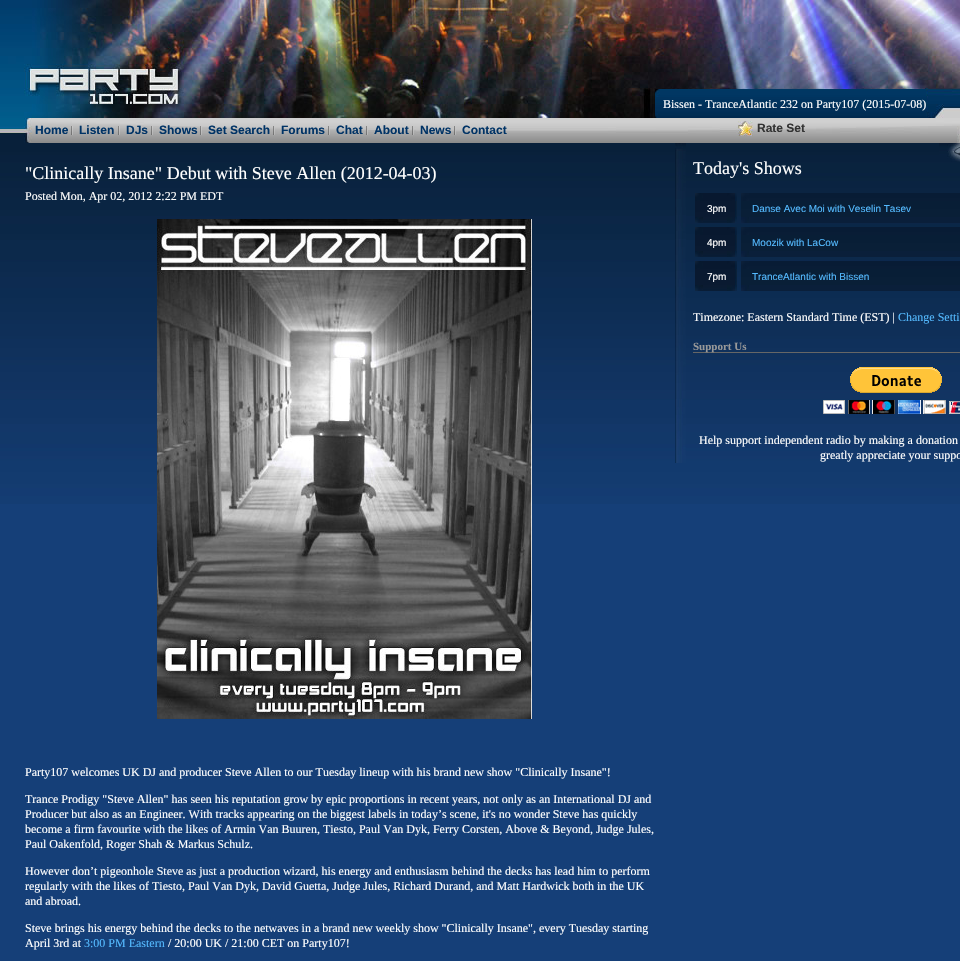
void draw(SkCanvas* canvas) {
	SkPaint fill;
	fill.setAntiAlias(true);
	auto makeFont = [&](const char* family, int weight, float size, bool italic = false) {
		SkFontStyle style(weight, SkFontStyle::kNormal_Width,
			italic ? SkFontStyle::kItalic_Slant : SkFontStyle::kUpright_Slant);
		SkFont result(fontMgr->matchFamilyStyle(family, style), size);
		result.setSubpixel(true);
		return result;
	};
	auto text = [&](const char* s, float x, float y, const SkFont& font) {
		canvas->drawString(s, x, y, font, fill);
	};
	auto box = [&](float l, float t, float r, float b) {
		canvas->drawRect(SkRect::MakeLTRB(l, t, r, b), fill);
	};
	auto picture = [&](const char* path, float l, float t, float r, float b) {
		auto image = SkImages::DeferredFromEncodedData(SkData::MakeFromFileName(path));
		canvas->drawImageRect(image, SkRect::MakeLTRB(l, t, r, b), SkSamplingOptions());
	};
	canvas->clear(0xFF153F78);
	picture("image0.png", 0, 143, 960, 504);
	picture("image1.png", 0, 0, 960, 118);
	picture("image2.png", 660, 89, 926, 118);
	picture("image3.png", 655, 89, 660, 118);
	picture("image4.png", 0, 118, 960, 143);
	picture("image5.png", 71, 126, 73, 135);
	picture("image5.png", 118, 126, 120, 135);
	picture("image5.png", 151, 126, 153, 135);
	picture("image5.png", 200, 126, 202, 135);
	picture("image5.png", 273, 126, 275, 135);
	picture("image5.png", 328, 126, 330, 135);
	picture("image5.png", 366, 126, 368, 135);
	picture("image5.png", 412, 126, 414, 135);
	picture("image5.png", 454, 126, 456, 135);
	picture("image6.png", 738, 121, 753, 136);
	picture("image7.png", 957, 126, 960, 143);
	picture("image8.png", 939, 143, 960, 162);
	picture("image9.png", 157, 219, 532, 719);
	picture("image10.png", 675, 143, 686, 463);
	picture("image11.png", 695, 193, 737, 223);
	picture("image12.png", 741, 193, 960, 223);
	picture("image11.png", 695, 227, 737, 257);
	picture("image12.png", 741, 227, 960, 257);
	picture("image11.png", 695, 261, 737, 291);
	picture("image12.png", 741, 261, 960, 291);
	fill.setColor(0xFF666666);
	box(693, 352, 960, 353);
	picture("image13.png", 823, 367, 960, 414);
	auto font1 = makeFont("Liberation Serif", 400, 12);
	fill.setColor(0xFFFFFFFF);
	text("Bissen - TranceAtlantic 232 on Party107 (2015-07-08)", 663, 108, font1);
	auto font2 = makeFont("Liberation Sans", 700, 12);
	fill.setColor(0xFF003366);
	text("Home", 35, 134, font2);
	text("Listen", 79, 134, font2);
	text("DJs", 126, 134, font2);
	text("Shows", 159, 134, font2);
	text("Set Search", 208, 134, font2);
	text("Forums", 281, 134, font2);
	text("Chat", 336, 134, font2);
	text("About", 374, 134, font2);
	text("News", 420, 134, font2);
	text("Contact", 462, 134, font2);
	fill.setColor(0xFF333333);
	text("Rate Set", 757, 132, font2);
	auto font3 = makeFont("Liberation Serif", 400, 18);
	fill.setColor(0xFFFFFFFF);
	text("\"Clinically Insane\" Debut with Steve Allen (2012-04-03)", 25, 179, font3);
	text("Posted Mon, Apr 02, 2012 2:22 PM EDT", 25, 200, font1);
	text("Party107 welcomes UK DJ and producer Steve Allen to our Tuesday lineup with his brand new show \"Clinically Insane\"!", 25, 776, font1);
	text("Trance Prodigy \"Steve Allen\" has seen his reputation grow by epic proportions in recent years, not only as an International DJ and", 25, 803, font1);
	text("Producer but also as an Engineer. With tracks appearing on the biggest labels in today’s scene, it's no wonder Steve has quickly", 25, 818, font1);
	text("become a firm favourite with the likes of Armin Van Buuren, Tiesto, Paul Van Dyk, Ferry Corsten, Above & Beyond, Judge Jules,", 25, 833, font1);
	text("Paul Oakenfold, Roger Shah & Markus Schulz.", 25, 848, font1);
	text("However don’t pigeonhole Steve as just a production wizard, his energy and enthusiasm behind the decks has lead him to perform", 25, 875, font1);
	text("regularly with the likes of Tiesto, Paul Van Dyk, David Guetta, Judge Jules, Richard Durand, and Matt Hardwick both in the UK", 25, 890, font1);
	text("and abroad.", 25, 905, font1);
	text("Steve brings his energy behind the decks to the netwaves in a brand new weekly show \"Clinically Insane\", every Tuesday starting", 25, 932, font1);
	text("April 3rd at", 25, 947, font1);
	fill.setColor(0xFF54BAFF);
	text("3:00 PM Eastern", 84, 947, font1);
	fill.setColor(0xFFFFFFFF);
	text("/ 20:00 UK / 21:00 CET on Party107!", 168, 947, font1);
	text("Today's Shows", 693, 174, font3);
	auto font4 = makeFont("Liberation Sans", 400, 10);
	text("3pm", 707, 212, font4);
	fill.setColor(0xFF54BAFF);
	text("Danse Avec Moi with Veselin Tasev", 752, 212, font4);
	fill.setColor(0xFFFFFFFF);
	text("4pm", 707, 246, font4);
	fill.setColor(0xFF54BAFF);
	text("Moozik with LaCow", 752, 246, font4);
	fill.setColor(0xFFFFFFFF);
	text("7pm", 707, 280, font4);
	fill.setColor(0xFF54BAFF);
	text("TranceAtlantic with Bissen", 752, 280, font4);
	fill.setColor(0xFFFFFFFF);
	text("Timezone: Eastern Standard Time (EST) |", 693, 321, font1);
	fill.setColor(0xFF54BAFF);
	text("Change Setti", 898, 321, font1);
	auto font5 = makeFont("Liberation Serif", 700, 11);
	fill.setColor(0xFF999999);
	text("Support Us", 693, 350, font5);
	fill.setColor(0xFFFFFFFF);
	text("Help support independent radio by making a donation", 699, 444, font1);
	text("greatly appreciate your suppo", 820, 459, font1);
}
